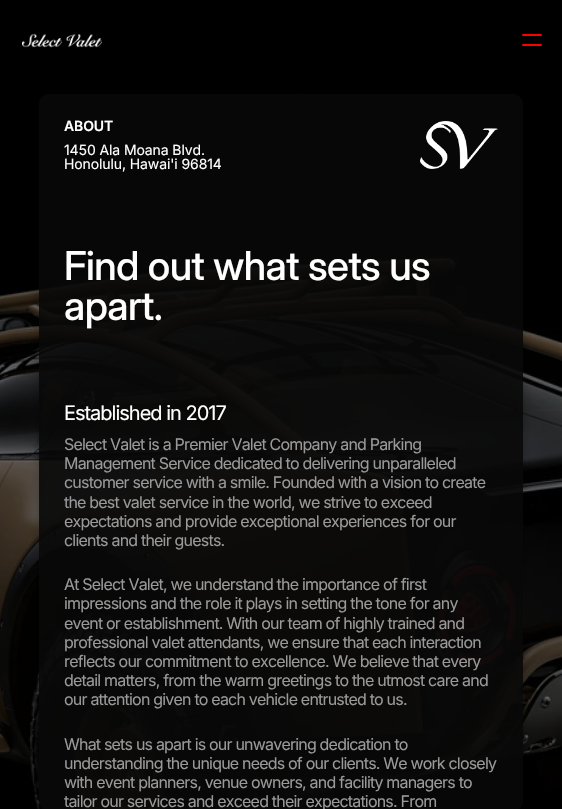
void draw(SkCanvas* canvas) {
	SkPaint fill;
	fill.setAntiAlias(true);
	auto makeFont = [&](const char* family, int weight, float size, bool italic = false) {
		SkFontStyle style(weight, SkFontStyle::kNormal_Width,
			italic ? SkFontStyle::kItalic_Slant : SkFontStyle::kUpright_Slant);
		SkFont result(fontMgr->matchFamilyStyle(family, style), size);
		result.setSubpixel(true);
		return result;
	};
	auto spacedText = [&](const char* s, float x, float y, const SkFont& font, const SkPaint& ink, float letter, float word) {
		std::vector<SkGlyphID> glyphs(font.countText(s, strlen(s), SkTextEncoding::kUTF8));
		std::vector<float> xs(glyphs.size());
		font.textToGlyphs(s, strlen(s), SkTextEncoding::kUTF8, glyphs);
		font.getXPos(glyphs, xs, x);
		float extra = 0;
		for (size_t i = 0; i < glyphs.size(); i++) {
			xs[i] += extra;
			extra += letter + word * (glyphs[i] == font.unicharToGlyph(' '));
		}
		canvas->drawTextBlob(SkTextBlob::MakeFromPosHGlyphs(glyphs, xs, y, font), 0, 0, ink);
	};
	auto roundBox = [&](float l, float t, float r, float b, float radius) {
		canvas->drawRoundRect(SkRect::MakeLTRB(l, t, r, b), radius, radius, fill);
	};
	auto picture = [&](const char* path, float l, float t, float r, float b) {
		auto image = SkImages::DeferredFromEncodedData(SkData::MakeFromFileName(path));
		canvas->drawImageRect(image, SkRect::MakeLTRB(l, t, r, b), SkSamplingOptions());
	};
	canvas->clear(0xFFFFFFFF);
	picture("image0.png", 0, 0, 562, 809);
	picture("image1.png", 22, 33, 102, 48);
	fill.setColor(0xFFFF0000);
	roundBox(522, 34, 542, 36, 1);
	roundBox(522, 44, 542, 46, 1);
	canvas->save();
	canvas->clipPath(SkPathBuilder(SkPathFillType::kEvenOdd).moveTo(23, 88).lineTo(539, 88).lineTo(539, 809).lineTo(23, 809).close().moveTo(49, 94).lineTo(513, 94).cubicTo(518.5f, 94, 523, 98.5f, 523, 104).lineTo(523, 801).cubicTo(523, 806.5f, 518.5f, 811, 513, 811).lineTo(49, 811).cubicTo(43.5f, 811, 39, 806.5f, 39, 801).lineTo(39, 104).cubicTo(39, 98.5f, 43.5f, 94, 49, 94).close().detach(), true);
	fill.setColor(0x40000000);
	fill.setMaskFilter(SkMaskFilter::MakeBlur(kNormal_SkBlurStyle, 5));
	canvas->drawRoundRect(SkRect::MakeLTRB(39, 104, 523, 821), 10, 10, fill);
	fill.setMaskFilter(nullptr);
	canvas->restore();
	fill.setColor(0xE6080808);
	roundBox(39, 94, 523, 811, 10);
	picture("image2.png", 420, 121, 498, 169);
	auto font1 = makeFont("Inter", 600, 14);
	fill.setColor(0xFFFFFFFF);
	spacedText("ABOUT", 64, 131, font1, fill, -0.1f, 0);
	auto font2 = makeFont("Inter", 400, 14);
	spacedText("1450 Ala Moana Blvd.", 64, 155, font2, fill, -0.1f, 0);
	spacedText("Honolulu, Hawai'i 96814", 64, 169, font2, fill, -0.1f, 0);
	auto font3 = makeFont("Inter Display", 500, 40);
	spacedText("Find out what sets us", 64, 280, font3, fill, -0.5f, 0);
	spacedText("apart.", 64, 320, font3, fill, -0.5f, 0);
	auto font4 = makeFont("Inter", 400, 20);
	spacedText("Established in 2017", 64, 420, font4, fill, -1, 0);
	auto font5 = makeFont("Inter", 400, 16);
	fill.setColor(0xFF999999);
	spacedText("Select Valet is a Premier Valet Company and Parking", 64, 450, font5, fill, -0.8f, 0);
	spacedText("Management Service dedicated to delivering unparalleled", 64, 469, font5, fill, -0.8f, 0);
	spacedText("customer service with a smile. Founded with a vision to create", 64, 488, font5, fill, -0.8f, 0);
	spacedText("the best valet service in the world, we strive to exceed", 64, 508, font5, fill, -0.8f, 0);
	spacedText("expectations and provide exceptional experiences for our", 64, 527, font5, fill, -0.8f, 0);
	spacedText("clients and their guests.", 64, 546, font5, fill, -0.8f, 0);
	spacedText("At Select Valet, we understand the importance of first", 64, 590, font5, fill, -0.8f, 0);
	spacedText("impressions and the role it plays in setting the tone for any", 64, 609, font5, fill, -0.8f, 0);
	spacedText("event or establishment. With our team of highly trained and", 64, 629, font5, fill, -0.8f, 0);
	spacedText("professional valet attendants, we ensure that each interaction", 64, 648, font5, fill, -0.8f, 0);
	spacedText("reflects our commitment to excellence. We believe that every", 64, 667, font5, fill, -0.8f, 0);
	spacedText("detail matters, from the warm greetings to the utmost care and", 64, 686, font5, fill, -0.8f, 0);
	spacedText("our attention given to each vehicle entrusted to us.", 64, 705, font5, fill, -0.8f, 0);
	spacedText("What sets us apart is our unwavering dedication to", 64, 750, font5, fill, -0.8f, 0);
	spacedText("understanding the unique needs of our clients. We work closely", 64, 769, font5, fill, -0.8f, 0);
	spacedText("with event planners, venue owners, and facility managers to", 64, 788, font5, fill, -0.8f, 0);
	spacedText("tailor our services and exceed their expectations. From", 64, 807, font5, fill, -0.8f, 0);
}
